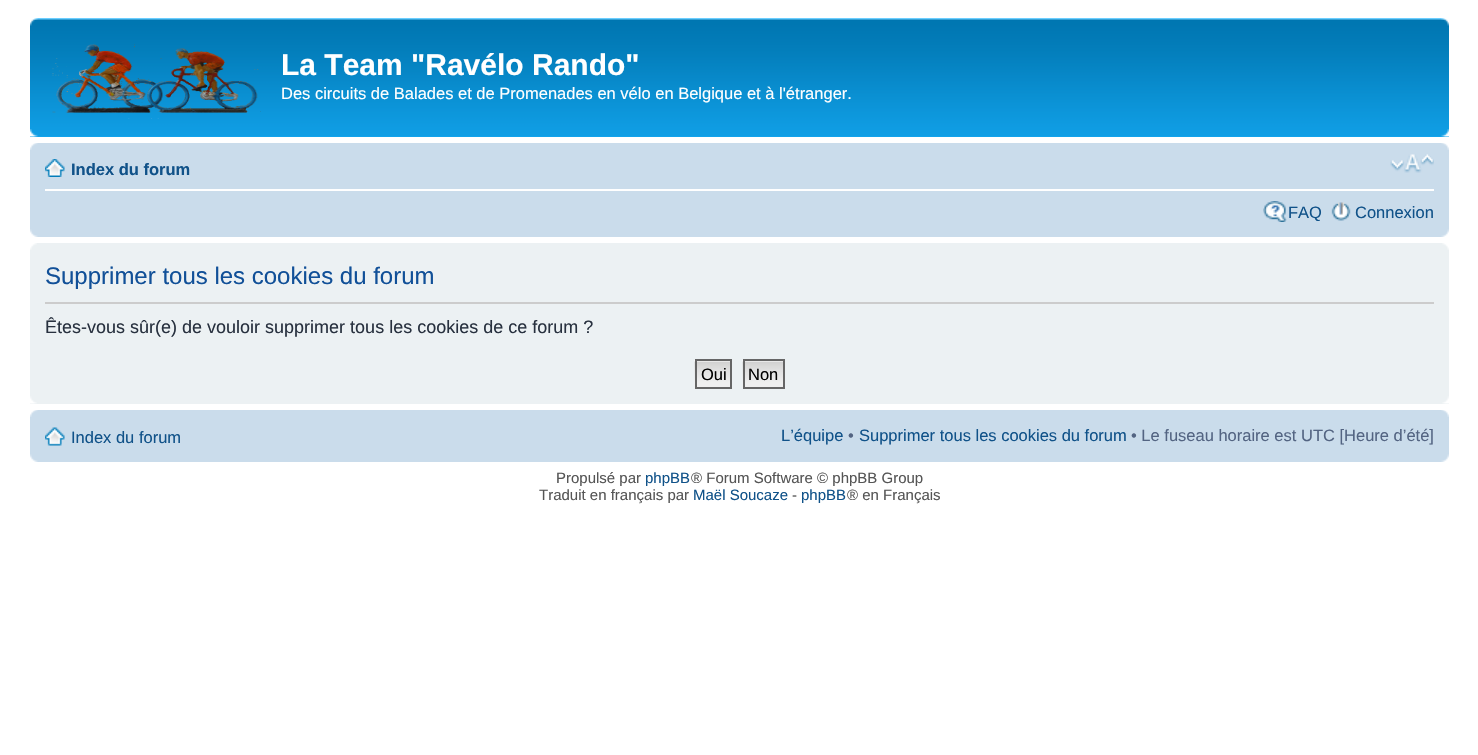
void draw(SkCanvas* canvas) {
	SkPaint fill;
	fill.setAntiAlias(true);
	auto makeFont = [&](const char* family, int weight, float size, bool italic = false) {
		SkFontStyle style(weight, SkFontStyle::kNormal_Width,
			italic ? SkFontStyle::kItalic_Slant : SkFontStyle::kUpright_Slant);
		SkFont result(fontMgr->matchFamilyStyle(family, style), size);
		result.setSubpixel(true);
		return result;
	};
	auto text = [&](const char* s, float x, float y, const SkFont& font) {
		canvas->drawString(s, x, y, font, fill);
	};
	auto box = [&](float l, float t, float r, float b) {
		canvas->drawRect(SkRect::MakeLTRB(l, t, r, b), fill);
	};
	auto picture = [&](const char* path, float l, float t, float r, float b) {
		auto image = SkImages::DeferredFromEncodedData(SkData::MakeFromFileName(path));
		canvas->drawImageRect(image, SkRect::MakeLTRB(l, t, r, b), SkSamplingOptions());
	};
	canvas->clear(0xFFFFFFFF);
	fill.setColor(0xFF12A3EB);
	box(30, 136, 1449, 137);
	picture("image0.png", 30, 18, 1449, 136);
	picture("image1.png", 30, 18, 38, 26);
	picture("image2.png", 1441, 18, 1449, 26);
	picture("image3.png", 52, 44, 261, 119);
	picture("image4.png", 30, 129, 38, 137);
	picture("image5.png", 1441, 129, 1449, 137);
	fill.setColor(0xFFCADCEB);
	box(30, 143, 1449, 237);
	picture("image6.png", 30, 143, 38, 150);
	picture("image7.png", 1441, 143, 1449, 150);
	fill.setColor(0xFFFFFFFF);
	box(45, 189, 1434, 191);
	picture("image8.png", 45, 159, 65, 177);
	picture("image9.png", 1390, 154, 1434, 173);
	picture("image10.png", 1263, 201, 1287, 222);
	picture("image11.png", 1331, 202, 1351, 221);
	picture("image12.png", 30, 229, 38, 237);
	picture("image13.png", 1441, 229, 1449, 237);
	fill.setColor(0xFFECF1F3);
	box(30, 243, 1449, 404);
	picture("image14.png", 30, 243, 37, 250);
	picture("image15.png", 1442, 243, 1449, 250);
	fill.setColor(0xFFCCCCCC);
	box(45, 302, 1434, 304);
	picture("image16.png", 694, 360, 730, 389);
	fill.setStyle(SkPaint::kStroke_Style);
	fill.setStrokeWidth(2);
	fill.setColor(0xFF666666);
	canvas->drawRect(SkRect::MakeLTRB(696, 360, 731, 388), fill);
	picture("image17.png", 742, 360, 783, 389);
	canvas->drawRect(SkRect::MakeLTRB(744, 360, 784, 388), fill);
	picture("image18.png", 30, 396, 37, 404);
	picture("image19.png", 1442, 396, 1449, 404);
	fill.setStyle(SkPaint::kFill_Style);
	fill.setColor(0xFFCADCEB);
	box(30, 410, 1449, 462);
	picture("image6.png", 30, 410, 38, 417);
	picture("image7.png", 1441, 410, 1449, 417);
	picture("image20.png", 45, 427, 65, 446);
	picture("image12.png", 30, 454, 38, 462);
	picture("image13.png", 1441, 454, 1449, 462);
	auto font1 = makeFont("Liberation Sans", 700, 30);
	fill.setColor(0xFFFFFFFF);
	text("La Team \"Ravélo Rando\"", 281, 75, font1);
	auto font2 = makeFont("Liberation Sans", 400, 16.5f);
	text("Des circuits de Balades et de Promenades en vélo en Belgique et à l'étranger.", 281, 99, font2);
	auto font3 = makeFont("Liberation Sans", 700, 16.5f);
	fill.setColor(0xFF105289);
	text("Index du forum", 71, 175, font3);
	text("FAQ", 1288, 218, font2);
	text("Connexion", 1355, 218, font2);
	auto font4 = makeFont("Liberation Sans", 400, 24);
	fill.setColor(0xFF115098);
	text("Supprimer tous les cookies du forum", 45, 284, font4);
	auto font5 = makeFont("Liberation Sans", 400, 18);
	fill.setColor(0xFF28313F);
	text("Êtes-vous sûr(e) de vouloir supprimer tous les cookies de ce forum ?", 45, 333, font5);
	fill.setColor(0xFF000000);
	text("Oui", 701, 380, font2);
	text("Non", 748, 380, font2);
	fill.setColor(0xFF105289);
	text("Index du forum", 71, 443, font2);
	text("L’équipe", 781, 441, font2);
	fill.setColor(0xFF536482);
	text("•", 848, 441, font2);
	fill.setColor(0xFF105289);
	text("Supprimer tous les cookies du forum", 859, 441, font2);
	fill.setColor(0xFF536482);
	text("• Le fuseau horaire est UTC [Heure d’été]", 1131, 441, font2);
	auto font6 = makeFont("Liberation Sans", 400, 15);
	fill.setColor(0xFF555555);
	text("Propulsé par", 556, 483, font6);
	fill.setColor(0xFF105289);
	text("phpBB", 645, 483, font6);
	fill.setColor(0xFF555555);
	text("® Forum Software © phpBB Group", 691, 483, font6);
	text("Traduit en français par", 539, 500, font6);
	fill.setColor(0xFF105289);
	text("Maël Soucaze", 693, 500, font6);
	fill.setColor(0xFF555555);
	text("-", 792, 500, font6);
	fill.setColor(0xFF105289);
	text("phpBB", 801, 500, font6);
	fill.setColor(0xFF555555);
	text("® en Français", 847, 500, font6);
}
